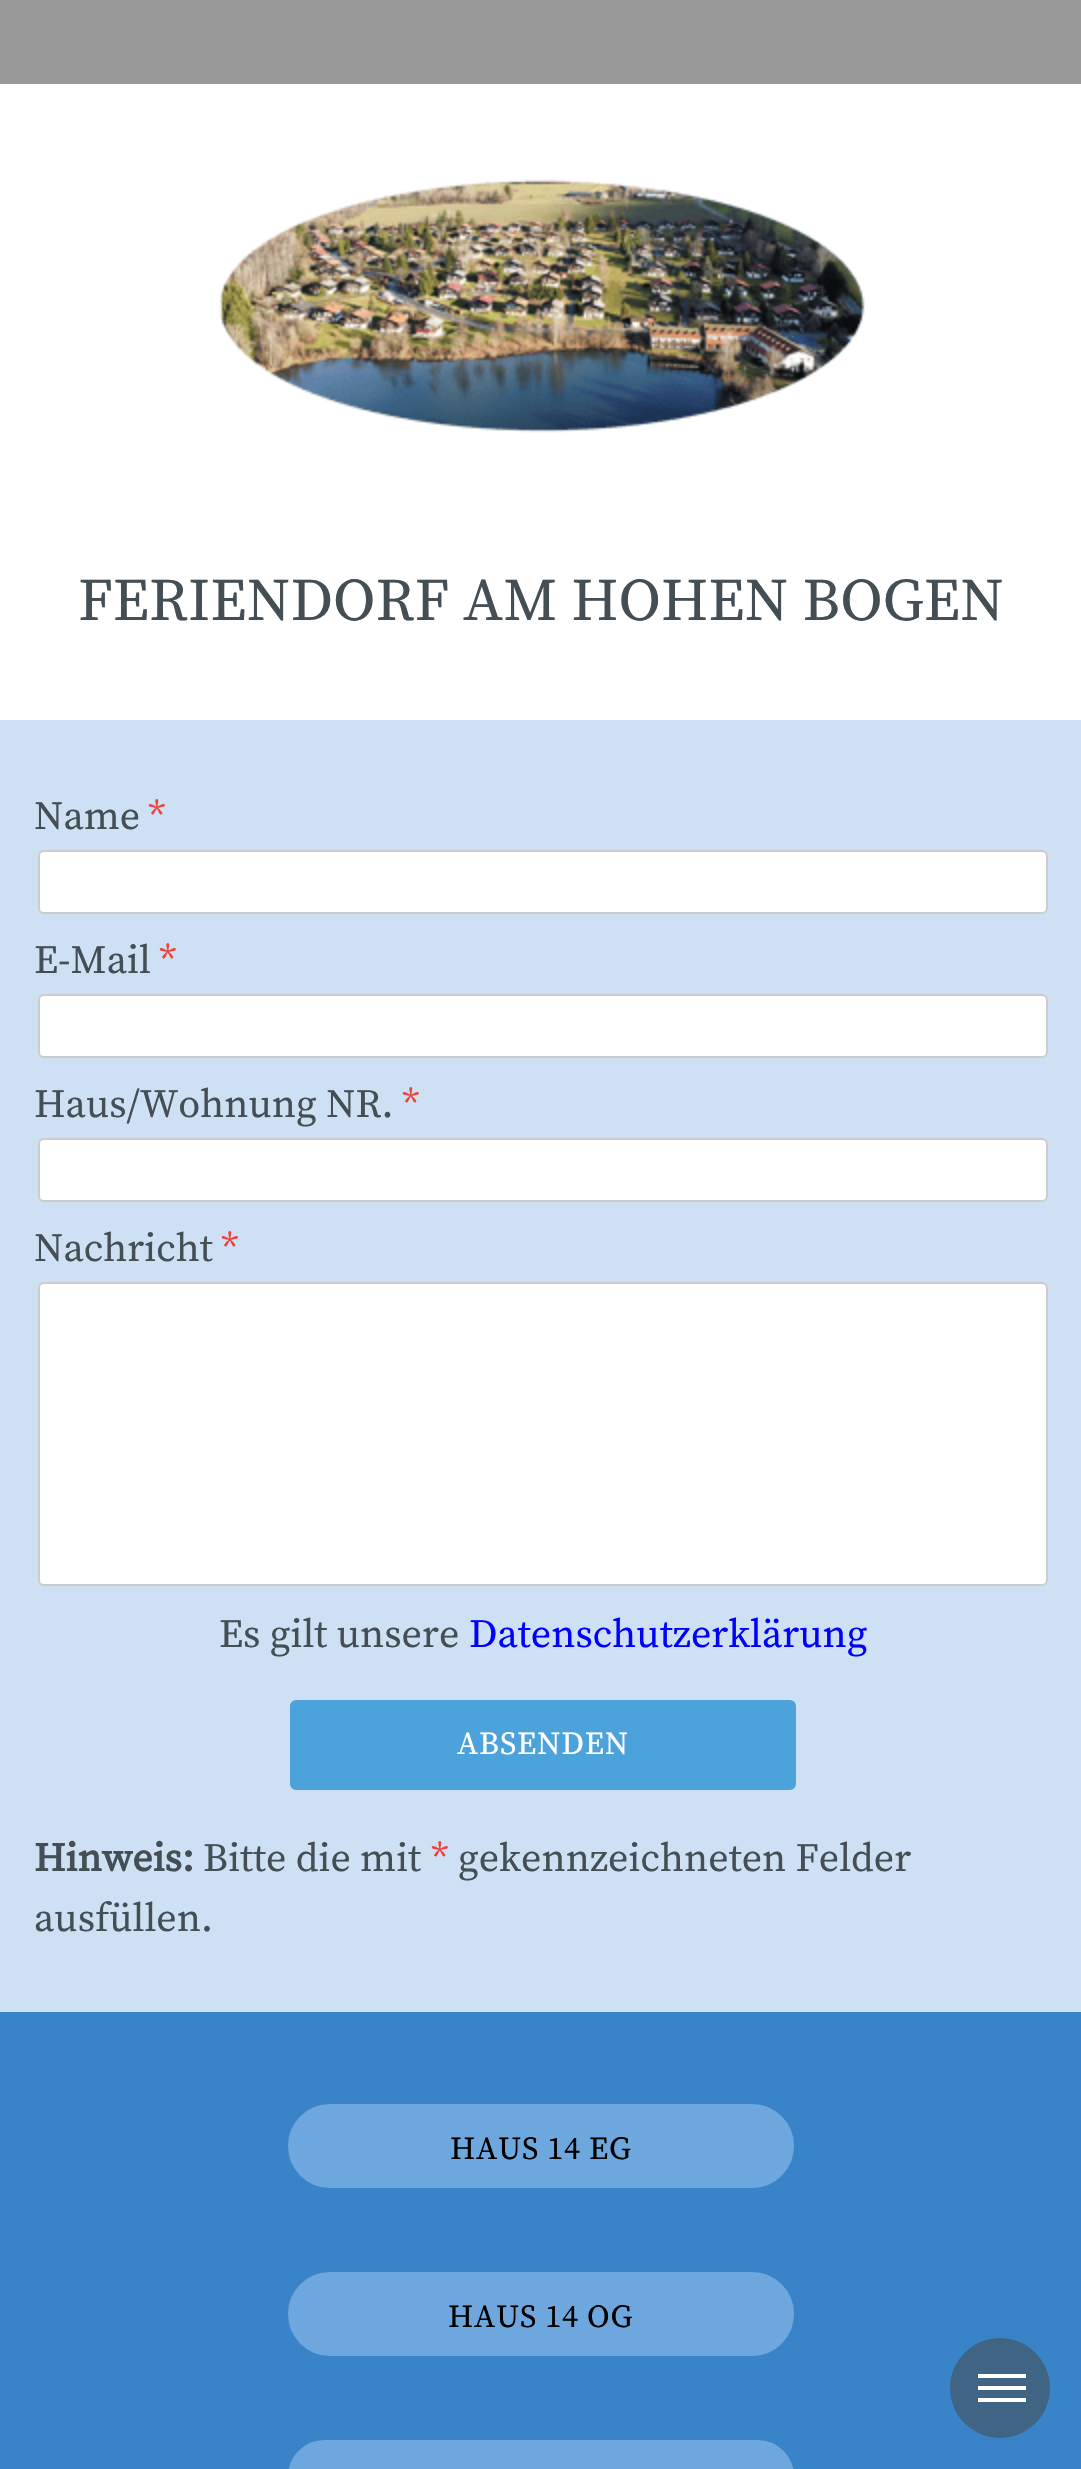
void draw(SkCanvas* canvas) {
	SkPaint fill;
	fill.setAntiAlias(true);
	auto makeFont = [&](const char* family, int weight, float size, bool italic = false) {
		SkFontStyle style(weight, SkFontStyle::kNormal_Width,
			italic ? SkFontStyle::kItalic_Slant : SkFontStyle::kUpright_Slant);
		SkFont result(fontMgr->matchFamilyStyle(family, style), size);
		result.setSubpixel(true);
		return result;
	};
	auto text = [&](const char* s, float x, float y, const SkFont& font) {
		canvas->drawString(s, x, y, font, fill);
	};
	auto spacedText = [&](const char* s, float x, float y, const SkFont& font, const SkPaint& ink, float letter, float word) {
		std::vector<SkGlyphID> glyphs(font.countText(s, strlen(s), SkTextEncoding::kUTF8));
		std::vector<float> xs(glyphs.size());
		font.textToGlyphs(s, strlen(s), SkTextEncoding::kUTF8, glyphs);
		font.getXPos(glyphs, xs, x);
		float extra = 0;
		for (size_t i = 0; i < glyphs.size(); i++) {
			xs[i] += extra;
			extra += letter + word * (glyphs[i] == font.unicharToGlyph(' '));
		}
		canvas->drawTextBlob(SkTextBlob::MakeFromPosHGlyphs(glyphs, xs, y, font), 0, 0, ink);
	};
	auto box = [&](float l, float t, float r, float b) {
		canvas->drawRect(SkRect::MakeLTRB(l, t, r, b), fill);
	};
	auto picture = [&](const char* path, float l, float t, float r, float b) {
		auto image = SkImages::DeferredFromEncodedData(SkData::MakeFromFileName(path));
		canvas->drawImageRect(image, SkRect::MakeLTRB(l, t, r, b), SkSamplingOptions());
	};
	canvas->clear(0xFFFFFFFF);
	fill.setColor(0xFF999999);
	box(0, 0, 1081, 84);
	picture("image0.png", 219, 179, 865, 433);
	fill.setColor(0xFFCEE1F4);
	box(0, 720, 1081, 2012);
	fill.setColor(0xFFFFFFFF);
	canvas->drawRoundRect(SkRect::MakeLTRB(39, 851, 1047, 913), 5, 5, fill);
	fill.setStyle(SkPaint::kStroke_Style);
	fill.setStrokeWidth(2);
	fill.setColor(0xFFCCCCCC);
	canvas->drawRoundRect(SkRect::MakeLTRB(39, 851, 1047, 913), 5, 5, fill);
	fill.setStyle(SkPaint::kFill_Style);
	fill.setColor(0xFFFFFFFF);
	canvas->drawRoundRect(SkRect::MakeLTRB(39, 995, 1047, 1057), 5, 5, fill);
	fill.setStyle(SkPaint::kStroke_Style);
	fill.setColor(0xFFCCCCCC);
	canvas->drawRoundRect(SkRect::MakeLTRB(39, 995, 1047, 1057), 5, 5, fill);
	fill.setStyle(SkPaint::kFill_Style);
	fill.setColor(0xFFFFFFFF);
	canvas->drawRoundRect(SkRect::MakeLTRB(39, 1139, 1047, 1201), 5, 5, fill);
	fill.setStyle(SkPaint::kStroke_Style);
	fill.setColor(0xFFCCCCCC);
	canvas->drawRoundRect(SkRect::MakeLTRB(39, 1139, 1047, 1201), 5, 5, fill);
	fill.setStyle(SkPaint::kFill_Style);
	fill.setColor(0xFFFFFFFF);
	canvas->drawRoundRect(SkRect::MakeLTRB(39, 1283, 1047, 1585), 5, 5, fill);
	fill.setStyle(SkPaint::kStroke_Style);
	fill.setColor(0xFFCCCCCC);
	canvas->drawRoundRect(SkRect::MakeLTRB(39, 1283, 1047, 1585), 5, 5, fill);
	fill.setStyle(SkPaint::kFill_Style);
	fill.setColor(0xFF4CA3DB);
	canvas->drawRoundRect(SkRect::MakeLTRB(291, 1701, 795, 1789), 5, 5, fill);
	fill.setStyle(SkPaint::kStroke_Style);
	canvas->drawRoundRect(SkRect::MakeLTRB(291, 1701, 795, 1789), 5, 5, fill);
	fill.setStyle(SkPaint::kFill_Style);
	fill.setColor(0xFF3984C8);
	box(0, 2012, 1081, 2469);
	fill.setColor(0xFF6DA7DE);
	canvas->drawRoundRect(SkRect::MakeLTRB(289, 2105, 793, 2187), 41, 41, fill);
	fill.setStyle(SkPaint::kStroke_Style);
	canvas->drawRoundRect(SkRect::MakeLTRB(289, 2105, 793, 2187), 41, 41, fill);
	fill.setStyle(SkPaint::kFill_Style);
	canvas->drawRoundRect(SkRect::MakeLTRB(289, 2273, 793, 2355), 41, 41, fill);
	fill.setStyle(SkPaint::kStroke_Style);
	canvas->drawRoundRect(SkRect::MakeLTRB(289, 2273, 793, 2355), 41, 41, fill);
	fill.setStyle(SkPaint::kFill_Style);
	canvas->drawRoundRect(SkRect::MakeLTRB(289, 2441, 793, 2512), 41, 41, fill);
	fill.setStyle(SkPaint::kStroke_Style);
	canvas->drawRoundRect(SkRect::MakeLTRB(289, 2441, 793, 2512), 41, 41, fill);
	fill.setStyle(SkPaint::kFill_Style);
	fill.setColor(0xFF406483);
	canvas->drawCircle(1000, 2388, 50, fill);
	fill.setColor(0xFFFFFFFF);
	box(978, 2386, 1026, 2390);
	box(978, 2374, 1026, 2378);
	box(978, 2398, 1026, 2402);
	auto font1 = makeFont("Source Serif Pro", 400, 60);
	fill.setColor(0xFF444F55);
	text("FERIENDORF AM HOHEN BOGEN", 78, 620, font1);
	auto font2 = makeFont("Source Serif Pro", 400, 40);
	text("Name", 34, 829, font2);
	fill.setColor(0xFFEB433E);
	text("*", 148, 829, font2);
	fill.setColor(0xFF444F55);
	text("E-Mail", 34, 973, font2);
	fill.setColor(0xFFEB433E);
	text("*", 159, 973, font2);
	fill.setColor(0xFF444F55);
	text("Haus/Wohnung NR.", 34, 1117, font2);
	fill.setColor(0xFFEB433E);
	text("*", 402, 1117, font2);
	fill.setColor(0xFF444F55);
	text("Nachricht", 34, 1261, font2);
	fill.setColor(0xFFEB433E);
	text("*", 221, 1261, font2);
	fill.setColor(0xFF444F55);
	text("Es gilt unsere", 219, 1647, font2);
	fill.setColor(0xFF0000FF);
	text("Datenschutzerklärung", 469, 1647, font2);
	auto font3 = makeFont("Source Serif Pro", 400, 32);
	fill.setColor(0xFFFFFFFF);
	spacedText("ABSENDEN", 457, 1754, font3, fill, 0.75f, 0);
	auto font4 = makeFont("Source Serif Pro", 700, 40);
	fill.setColor(0xFF444F55);
	text("Hinweis:", 34, 1871, font4);
	text("Bitte die mit", 203, 1871, font2);
	fill.setColor(0xFFEB433E);
	text("*", 431, 1871, font2);
	fill.setColor(0xFF444F55);
	text("gekennzeichneten Felder", 458, 1871, font2);
	text("ausfüllen.", 34, 1931, font2);
	fill.setColor(0xFF000000);
	spacedText("HAUS 14 EG", 450, 2159, font3, fill, 0.75f, 0);
	spacedText("HAUS 14 OG", 448, 2327, font3, fill, 0.75f, 0);
}
